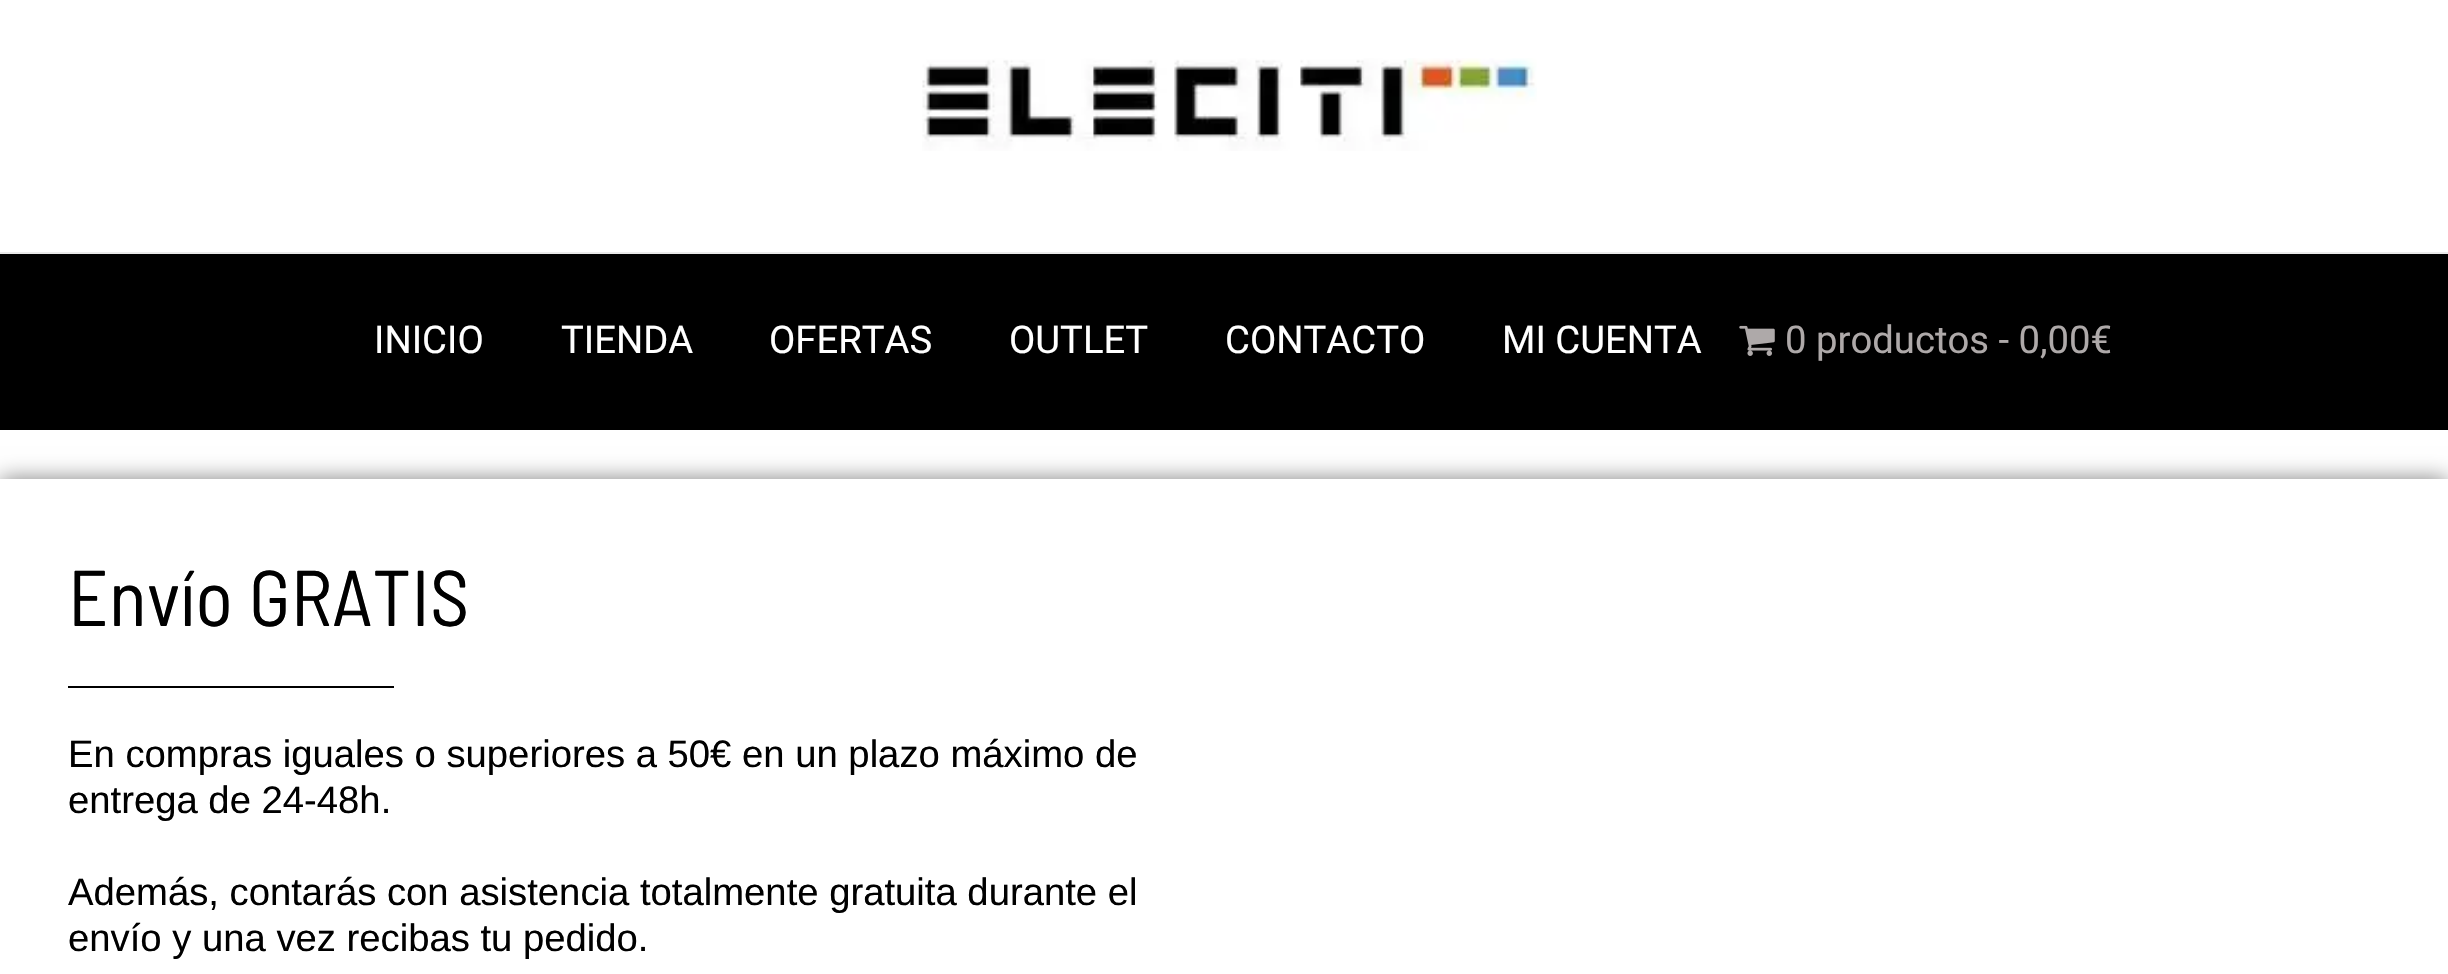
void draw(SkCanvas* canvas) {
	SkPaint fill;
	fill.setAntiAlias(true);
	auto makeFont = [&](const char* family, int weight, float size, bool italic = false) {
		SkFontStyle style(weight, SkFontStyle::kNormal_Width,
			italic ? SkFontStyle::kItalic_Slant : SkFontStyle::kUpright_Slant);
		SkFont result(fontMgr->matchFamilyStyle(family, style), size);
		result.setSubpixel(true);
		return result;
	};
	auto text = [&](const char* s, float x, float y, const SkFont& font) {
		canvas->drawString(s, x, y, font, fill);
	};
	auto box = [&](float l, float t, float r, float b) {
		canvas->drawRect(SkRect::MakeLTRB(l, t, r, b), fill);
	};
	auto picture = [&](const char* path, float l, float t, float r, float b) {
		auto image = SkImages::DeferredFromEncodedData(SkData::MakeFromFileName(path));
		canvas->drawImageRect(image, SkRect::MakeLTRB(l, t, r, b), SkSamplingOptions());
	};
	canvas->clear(0xFFFFFFFF);
	fill.setColor(0xFFEAEAEA);
	box(0, 252, 2448, 254);
	picture("image0.png", 922, 58, 1537, 151);
	fill.setColor(0xFF000000);
	box(0, 254, 2448, 430);
	picture("image1.png", 1739, 325, 1775, 356);
	canvas->save();
	canvas->clipPath(SkPathBuilder(SkPathFillType::kEvenOdd).moveTo(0, 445).lineTo(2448, 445).lineTo(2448, 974).lineTo(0, 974).close().moveTo(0, 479).lineTo(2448, 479).lineTo(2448, 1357).lineTo(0, 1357).close().detach(), true);
	fill.setColor(0x80000000);
	fill.setMaskFilter(SkMaskFilter::MakeBlur(kNormal_SkBlurStyle, 11));
	canvas->drawRect(SkRect::MakeLTRB(0, 479, 2448, 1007), fill);
	fill.setMaskFilter(nullptr);
	canvas->restore();
	fill.setColor(0xFF000000);
	box(68, 686, 394, 688);
	auto font1 = makeFont("Roboto", 400, 38.25f);
	fill.setColor(0xFFFFFFFF);
	text("INICIO", 374, 353, font1);
	text("TIENDA", 561, 353, font1);
	text("OFERTAS", 769, 353, font1);
	text("OUTLET", 1009, 353, font1);
	text("CONTACTO", 1225, 353, font1);
	text("MI CUENTA", 1502, 353, font1);
	fill.setColor(0xFFAEA9A9);
	text("0 productos - 0,00€", 1785, 353, font1);
	auto font2 = makeFont("Barlow Semi Condensed", 400, 78.75f);
	fill.setColor(0xFF000000);
	text("Envío GRATIS", 68, 626, font2);
	auto font3 = makeFont("Liberation Sans", 400, 38.25f);
	text("En compras iguales o superiores a 50€ en un plazo máximo de", 68, 767, font3);
	text("entrega de 24-48h.", 68, 813, font3);
	text("Además, contarás con asistencia totalmente gratuita durante el", 68, 905, font3);
	text("envío y una vez recibas tu pedido.", 68, 951, font3);
}
